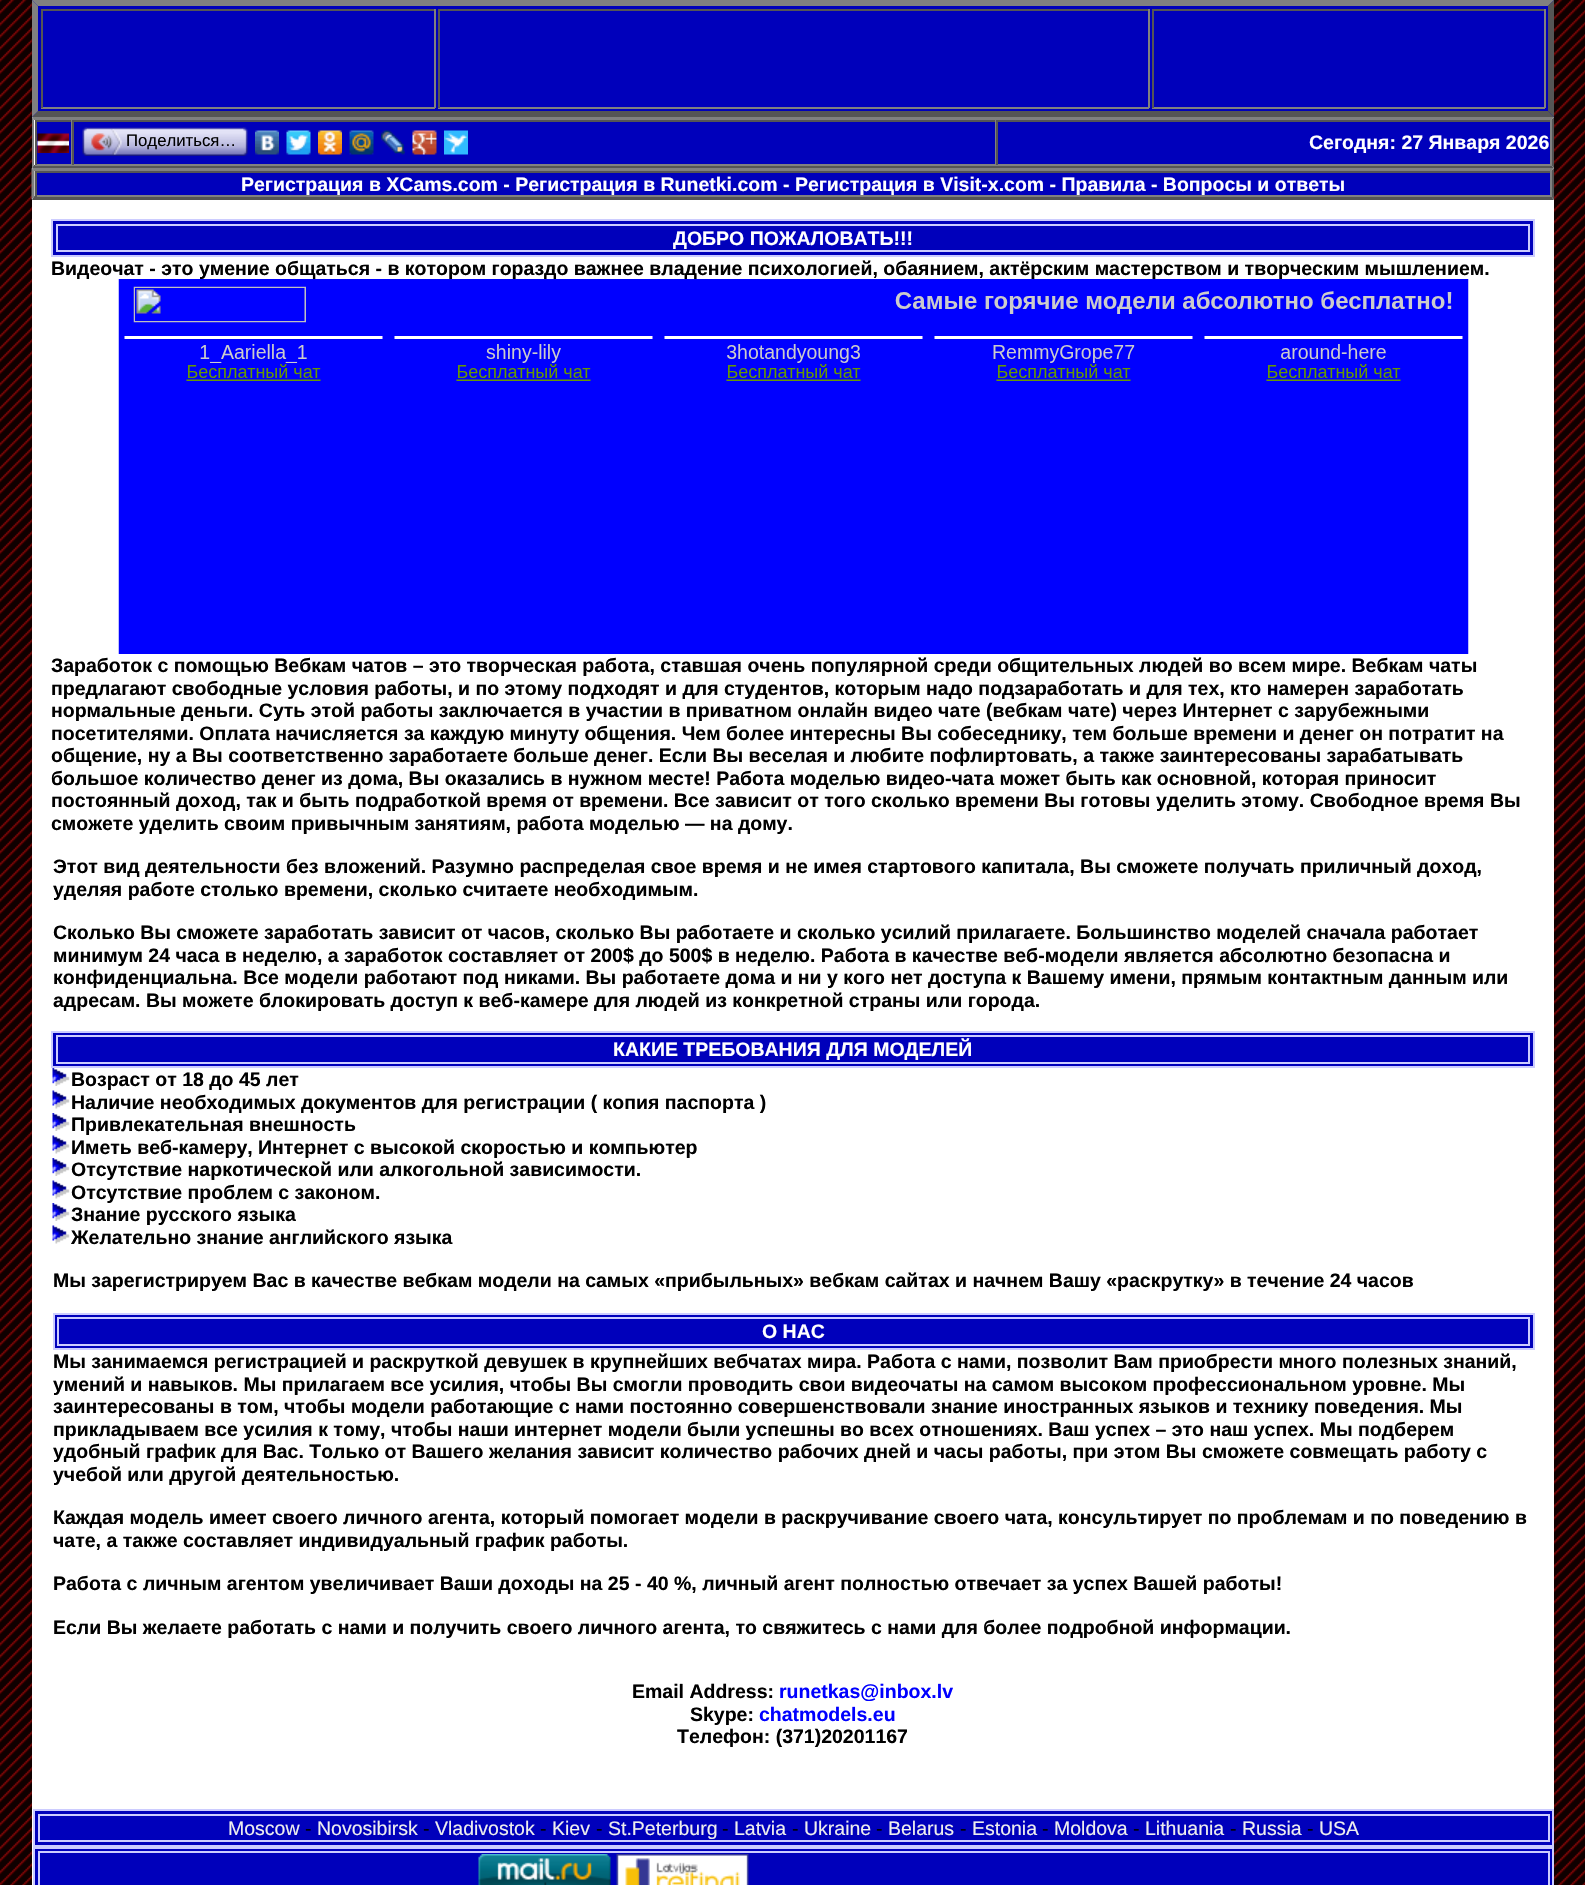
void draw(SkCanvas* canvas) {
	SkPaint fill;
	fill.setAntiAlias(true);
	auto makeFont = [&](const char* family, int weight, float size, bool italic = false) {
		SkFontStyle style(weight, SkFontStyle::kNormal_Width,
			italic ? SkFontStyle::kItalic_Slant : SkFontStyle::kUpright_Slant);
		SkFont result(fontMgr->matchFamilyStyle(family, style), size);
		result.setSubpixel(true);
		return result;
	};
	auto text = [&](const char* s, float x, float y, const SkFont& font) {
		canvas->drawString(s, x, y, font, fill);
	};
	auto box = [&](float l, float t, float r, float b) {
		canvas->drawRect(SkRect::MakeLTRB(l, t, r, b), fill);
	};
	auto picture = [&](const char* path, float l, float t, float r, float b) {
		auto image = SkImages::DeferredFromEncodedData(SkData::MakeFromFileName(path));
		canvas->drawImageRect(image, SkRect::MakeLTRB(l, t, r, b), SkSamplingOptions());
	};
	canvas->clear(0xFFFFFFFF);
	picture("image0.png", 0, 0, 1585, 1885);
	fill.setColor(0xFF0000BB);
	box(32, 0, 1554, 117);
	fill.setColor(0xFF808080);
	canvas->drawPath(SkPathBuilder().moveTo(32, 0).lineTo(1554, 0).lineTo(1548, 6).lineTo(38, 6).close().detach(), fill);
	fill.setColor(0xFF555555);
	canvas->drawPath(SkPathBuilder().moveTo(1554, 0).lineTo(1554, 117).lineTo(1548, 111).lineTo(1548, 6).close().detach(), fill);
	canvas->drawPath(SkPathBuilder().moveTo(1554, 117).lineTo(32, 117).lineTo(38, 111).lineTo(1548, 111).close().detach(), fill);
	fill.setColor(0xFF808080);
	canvas->drawPath(SkPathBuilder().moveTo(32, 117).lineTo(32, 0).lineTo(38, 6).lineTo(38, 111).close().detach(), fill);
	fill.setColor(0xFF555555);
	box(41, 9, 435, 11);
	fill.setColor(0xFF808080);
	box(434, 9, 436, 108);
	box(41, 107, 435, 109);
	fill.setColor(0xFF555555);
	box(41, 9, 43, 108);
	box(438, 9, 1149, 11);
	fill.setColor(0xFF808080);
	box(1148, 9, 1150, 108);
	box(438, 107, 1149, 109);
	fill.setColor(0xFF555555);
	box(438, 9, 440, 108);
	box(1152, 9, 1545, 11);
	fill.setColor(0xFF808080);
	box(1544, 9, 1546, 108);
	box(1152, 107, 1545, 109);
	fill.setColor(0xFF555555);
	box(1152, 9, 1154, 108);
	fill.setColor(0xFFFFFFFF);
	box(32, 117, 1554, 1885);
	fill.setColor(0xFF808080);
	canvas->drawPath(SkPathBuilder().moveTo(32, 117).lineTo(1554, 117).lineTo(1551, 120).lineTo(34, 120).close().detach(), fill);
	fill.setColor(0xFF555555);
	canvas->drawPath(SkPathBuilder().moveTo(1554, 117).lineTo(1554, 168).lineTo(1551, 165).lineTo(1551, 120).close().detach(), fill);
	canvas->drawPath(SkPathBuilder().moveTo(1554, 168).lineTo(32, 168).lineTo(34, 165).lineTo(1551, 165).close().detach(), fill);
	fill.setColor(0xFF808080);
	canvas->drawPath(SkPathBuilder().moveTo(32, 168).lineTo(32, 117).lineTo(34, 120).lineTo(34, 165).close().detach(), fill);
	fill.setColor(0xFF0000BB);
	box(37, 122, 71, 164);
	fill.setColor(0xFF555555);
	box(35, 120, 1551, 122);
	fill.setColor(0xFF808080);
	box(71, 120, 72, 165);
	box(35, 164, 72, 166);
	fill.setColor(0xFF555555);
	box(35, 120, 37, 165);
	picture("image1.png", 37, 133, 69, 153);
	fill.setColor(0xFF0000BB);
	box(74, 122, 995, 164);
	fill.setColor(0xFF808080);
	box(995, 120, 996, 165);
	box(72, 164, 996, 166);
	fill.setColor(0xFF555555);
	box(72, 120, 74, 165);
	picture("image2.png", 87, 127, 243, 156);
	picture("image3.png", 82, 127, 87, 156);
	picture("image4.png", 91, 129, 122, 155);
	picture("image5.png", 243, 127, 248, 156);
	picture("image6.png", 255, 130, 279, 155);
	picture("image7.png", 286, 130, 311, 155);
	picture("image8.png", 318, 130, 342, 155);
	picture("image9.png", 349, 130, 374, 155);
	picture("image10.png", 381, 130, 405, 155);
	picture("image11.png", 412, 130, 437, 155);
	picture("image12.png", 444, 130, 468, 155);
	fill.setColor(0xFF0000BB);
	box(998, 122, 1550, 164);
	fill.setColor(0xFF808080);
	box(1550, 120, 1552, 165);
	box(996, 164, 1551, 166);
	fill.setColor(0xFF555555);
	box(996, 120, 998, 165);
	fill.setColor(0xFF808080);
	canvas->drawPath(SkPathBuilder().moveTo(32, 168).lineTo(1554, 168).lineTo(1551, 171).lineTo(34, 171).close().detach(), fill);
	fill.setColor(0xFF555555);
	canvas->drawPath(SkPathBuilder().moveTo(1554, 168).lineTo(1554, 199.5f).lineTo(1551, 196.5f).lineTo(1551, 171).close().detach(), fill);
	canvas->drawPath(SkPathBuilder().moveTo(1554, 200).lineTo(32, 200).lineTo(34, 196).lineTo(1551, 196).close().detach(), fill);
	fill.setColor(0xFF808080);
	canvas->drawPath(SkPathBuilder().moveTo(31.5f, 199.5f).lineTo(31.5f, 168).lineTo(34.5f, 171).lineTo(34.5f, 196.5f).close().detach(), fill);
	fill.setColor(0xFF0000BB);
	box(37, 173, 1550, 195);
	fill.setColor(0xFF555555);
	box(35, 171, 1551, 173);
	fill.setColor(0xFF808080);
	box(1550, 171, 1552, 197);
	box(35, 195, 1551, 197);
	fill.setColor(0xFF555555);
	box(35, 171, 37, 197);
	fill.setColor(0xFF0000BB);
	canvas->drawRect(SkRect::MakeLTRB(52, 220, 1534, 256), fill);
	fill.setStyle(SkPaint::kStroke_Style);
	fill.setStrokeWidth(2);
	fill.setColor(0xFFCCCCFF);
	canvas->drawRect(SkRect::MakeLTRB(52, 220, 1534, 256), fill);
	canvas->drawRect(SkRect::MakeLTRB(57, 225, 1529, 251), fill);
	fill.setStyle(SkPaint::kFill_Style);
	fill.setColor(0xFF0000BB);
	canvas->drawRect(SkRect::MakeLTRB(52, 1032, 1534, 1067), fill);
	fill.setStyle(SkPaint::kStroke_Style);
	fill.setColor(0xFFCCCCFF);
	canvas->drawRect(SkRect::MakeLTRB(52, 1032, 1534, 1067), fill);
	canvas->drawRect(SkRect::MakeLTRB(57, 1036, 1529, 1063), fill);
	picture("image14.png", 52, 1068, 70, 1086);
	picture("image15.png", 52, 1090, 70, 1109);
	picture("image14.png", 52, 1113, 70, 1131);
	picture("image15.png", 52, 1135, 70, 1154);
	picture("image14.png", 52, 1158, 70, 1176);
	picture("image15.png", 52, 1180, 70, 1199);
	picture("image14.png", 52, 1203, 70, 1221);
	picture("image15.png", 52, 1225, 70, 1244);
	fill.setStyle(SkPaint::kFill_Style);
	fill.setColor(0xFF0000BB);
	canvas->drawRect(SkRect::MakeLTRB(54, 1314, 1534, 1349), fill);
	fill.setStyle(SkPaint::kStroke_Style);
	fill.setColor(0xFFCCCCFF);
	canvas->drawRect(SkRect::MakeLTRB(54, 1314, 1534, 1349), fill);
	canvas->drawRect(SkRect::MakeLTRB(58, 1318, 1529, 1345), fill);
	fill.setStyle(SkPaint::kFill_Style);
	fill.setColor(0xFF0000BB);
	canvas->drawRect(SkRect::MakeLTRB(34, 1810, 1553, 1846), fill);
	fill.setStyle(SkPaint::kStroke_Style);
	fill.setColor(0xFFCCCCFF);
	canvas->drawRect(SkRect::MakeLTRB(34, 1810, 1553, 1846), fill);
	canvas->drawRect(SkRect::MakeLTRB(39, 1815, 1549, 1841), fill);
	fill.setStyle(SkPaint::kFill_Style);
	fill.setColor(0xFF0000BB);
	canvas->drawRect(SkRect::MakeLTRB(34, 1848, 1553, 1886), fill);
	fill.setStyle(SkPaint::kStroke_Style);
	fill.setColor(0xFFCCCCFF);
	canvas->drawRect(SkRect::MakeLTRB(34, 1848, 1553, 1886), fill);
	canvas->drawRect(SkRect::MakeLTRB(39, 1852, 1549, 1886), fill);
	picture("image16.png", 478, 1854, 611, 1885);
	picture("image17.png", 616, 1854, 749, 1885);
	auto font1 = makeFont("Liberation Sans", 400, 16.75f);
	fill.setStyle(SkPaint::kFill_Style);
	fill.setColor(0xFF000000);
	text("Поделиться…", 126, 146, font1);
	auto font2 = makeFont("Liberation Sans", 700, 19.5f);
	fill.setColor(0xFFFFFFFF);
	text("Сегодня: 27 Января 2026", 1309, 149, font2);
	text("Регистрация в XCams.com - Регистрация в Runetki.com - Регистрация в Visit-x.com - Правила - Вопросы и ответы", 241, 191, font2);
	text("ДОБРО ПОЖАЛОВАТЬ!!!", 673, 245, font2);
	fill.setColor(0xFF000000);
	text("Видеочат - это умение общаться - в котором гораздо важнее владение психологией, обаянием, актёрским мастерством и творческим мышлением.", 51, 275, font2);
	picture("image13.png", 118, 279, 1469, 654);
	text("Заработок с помощью Вебкам чатов – это творческая работа, ставшая очень популярной среди общительных людей во всем мире. Вебкам чаты", 51, 672, font2);
	text("предлагают свободные условия работы, и по этому подходят и для студентов, которым надо подзаработать и для тех, кто намерен заработать", 51, 695, font2);
	text("нормальные деньги. Суть этой работы заключается в участии в приватном онлайн видео чате (вебкам чате) через Интернет с зарубежными", 51, 717, font2);
	text("посетителями. Оплата начисляется за каждую минуту общения. Чем более интересны Вы собеседнику, тем больше времени и денег он потратит на", 51, 740, font2);
	text("общение, ну а Вы соответственно заработаете больше денег. Если Вы веселая и любите пофлиртовать, а также заинтересованы зарабатывать", 51, 762, font2);
	text("большое количество денег из дома, Вы оказались в нужном месте! Работа моделью видео-чата может быть как основной, которая приносит", 51, 785, font2);
	text("постоянный доход, так и быть подработкой время от времени. Все зависит от того сколько времени Вы готовы уделить этому. Свободное время Вы", 51, 807, font2);
	text("сможете уделить своим привычным занятиям, работа моделью — на дому.", 51, 830, font2);
	text("Этот вид деятельности без вложений. Разумно распределая свое время и не имея стартового капитала, Вы сможете получать приличный доход,", 53, 873, font2);
	text("уделяя работе столько времени, сколько считаете необходимым.", 53, 896, font2);
	text("Сколько Вы сможете заработать зависит от часов, сколько Вы работаете и сколько усилий прилагаете. Большинство моделей сначала работает", 53, 939, font2);
	text("минимум 24 часа в неделю, а заработок составляет от 200$ до 500$ в неделю. Работа в качестве веб-модели является абсолютно безопасна и", 53, 962, font2);
	text("конфиденциальна. Все модели работают под никами. Вы работаете дома и ни у кого нет доступа к Вашему имени, прямым контактным данным или", 53, 984, font2);
	text("адресам. Вы можете блокировать доступ к веб-камере для людей из конкретной страны или города.", 53, 1007, font2);
	fill.setColor(0xFFFFFFFF);
	text("КАКИЕ ТРЕБОВАНИЯ ДЛЯ МОДЕЛЕЙ", 613, 1056, font2);
	fill.setColor(0xFF000000);
	text("Возраст от 18 до 45 лет", 71, 1086, font2);
	text("Наличие необходимых документов для регистрации ( копия паспорта )", 71, 1109, font2);
	text("Привлекательная внешность", 71, 1131, font2);
	text("Иметь веб-камеру, Интернет с высокой скоростью и компьютер", 71, 1154, font2);
	text("Отсутствие наркотической или алкогольной зависимости.", 71, 1176, font2);
	text("Отсутствие проблем с законом.", 71, 1199, font2);
	text("Знание русского языка", 71, 1221, font2);
	text("Желательно знание английского языка", 71, 1244, font2);
	text("Мы зарегистрируем Вас в качестве вебкам модели на самых «прибыльных» вебкам сайтах и начнем Вашу «раскрутку» в течение 24 часов", 53, 1287, font2);
	fill.setColor(0xFFFFFFFF);
	text("О НАС", 762, 1338, font2);
	fill.setColor(0xFF000000);
	text("Мы занимаемся регистрацией и раскруткой девушек в крупнейших вебчатах мира. Работа с нами, позволит Вам приобрести много полезных знаний,", 53, 1368, font2);
	text("умений и навыков. Мы прилагаем все усилия, чтобы Вы смогли проводить свои видеочаты на самом высоком профессиональном уровне. Мы", 53, 1391, font2);
	text("заинтересованы в том, чтобы модели работающие с нами постоянно совершенствовали знание иностранных языков и технику поведения. Мы", 53, 1413, font2);
	text("прикладываем все усилия к тому, чтобы наши интернет модели были успешны во всех отношениях. Ваш успех – это наш успех. Мы подберем", 53, 1436, font2);
	text("удобный график для Вас. Только от Вашего желания зависит количество рабочих дней и часы работы, при этом Вы сможете совмещать работу с", 53, 1458, font2);
	text("учебой или другой деятельностью.", 53, 1481, font2);
	text("Каждая модель имеет своего личного агента, который помогает модели в раскручивание своего чата, консультирует по проблемам и по поведению в", 53, 1524, font2);
	text("чате, а также составляет индивидуальный график работы.", 53, 1547, font2);
	text("Работа с личным агентом увеличивает Ваши доходы на 25 - 40 %, личный агент полностью отвечает за успех Вашей работы!", 53, 1590, font2);
	text("Если Вы желаете работать с нами и получить своего личного агента, то свяжитесь с нами для более подробной информации.", 53, 1634, font2);
	text("Email Address:", 632, 1698, font2);
	fill.setColor(0xFF0000FF);
	text("runetkas@inbox.lv", 779, 1698, font2);
	fill.setColor(0xFF000000);
	text("Skype:", 690, 1721, font2);
	fill.setColor(0xFF0000FF);
	text("chatmodels.eu", 759, 1721, font2);
	fill.setColor(0xFF000000);
	text("Телефон: (371)20201167", 677, 1743, font2);
	auto font3 = makeFont("Liberation Sans", 400, 19.5f);
	fill.setColor(0xFFEEEEEE);
	text("Moscow", 228, 1835, font3);
	fill.setColor(0xFF000000);
	text("-", 305, 1835, font3);
	fill.setColor(0xFFEEEEEE);
	text("Novosibirsk", 317, 1835, font3);
	fill.setColor(0xFF000000);
	text("-", 423, 1835, font3);
	fill.setColor(0xFFEEEEEE);
	text("Vladivostok", 435, 1835, font3);
	fill.setColor(0xFF000000);
	text("-", 540, 1835, font3);
	fill.setColor(0xFFEEEEEE);
	text("Kiev", 552, 1835, font3);
	fill.setColor(0xFF000000);
	text("-", 596, 1835, font3);
	fill.setColor(0xFFEEEEEE);
	text("St.Peterburg", 608, 1835, font3);
	fill.setColor(0xFF000000);
	text("-", 722, 1835, font3);
	fill.setColor(0xFFEEEEEE);
	text("Latvia", 734, 1835, font3);
	fill.setColor(0xFF000000);
	text("-", 792, 1835, font3);
	fill.setColor(0xFFEEEEEE);
	text("Ukraine", 804, 1835, font3);
	fill.setColor(0xFF000000);
	text("-", 876, 1835, font3);
	fill.setColor(0xFFEEEEEE);
	text("Belarus", 888, 1835, font3);
	fill.setColor(0xFF000000);
	text("-", 960, 1835, font3);
	fill.setColor(0xFFEEEEEE);
	text("Estonia", 972, 1835, font3);
	fill.setColor(0xFF000000);
	text("-", 1042, 1835, font3);
	fill.setColor(0xFFEEEEEE);
	text("Moldova", 1054, 1835, font3);
	fill.setColor(0xFF000000);
	text("-", 1133, 1835, font3);
	fill.setColor(0xFFEEEEEE);
	text("Lithuania", 1145, 1835, font3);
	fill.setColor(0xFF000000);
	text("-", 1230, 1835, font3);
	fill.setColor(0xFFEEEEEE);
	text("Russia", 1242, 1835, font3);
	fill.setColor(0xFF000000);
	text("-", 1307, 1835, font3);
	fill.setColor(0xFFEEEEEE);
	text("USA", 1319, 1835, font3);
}
